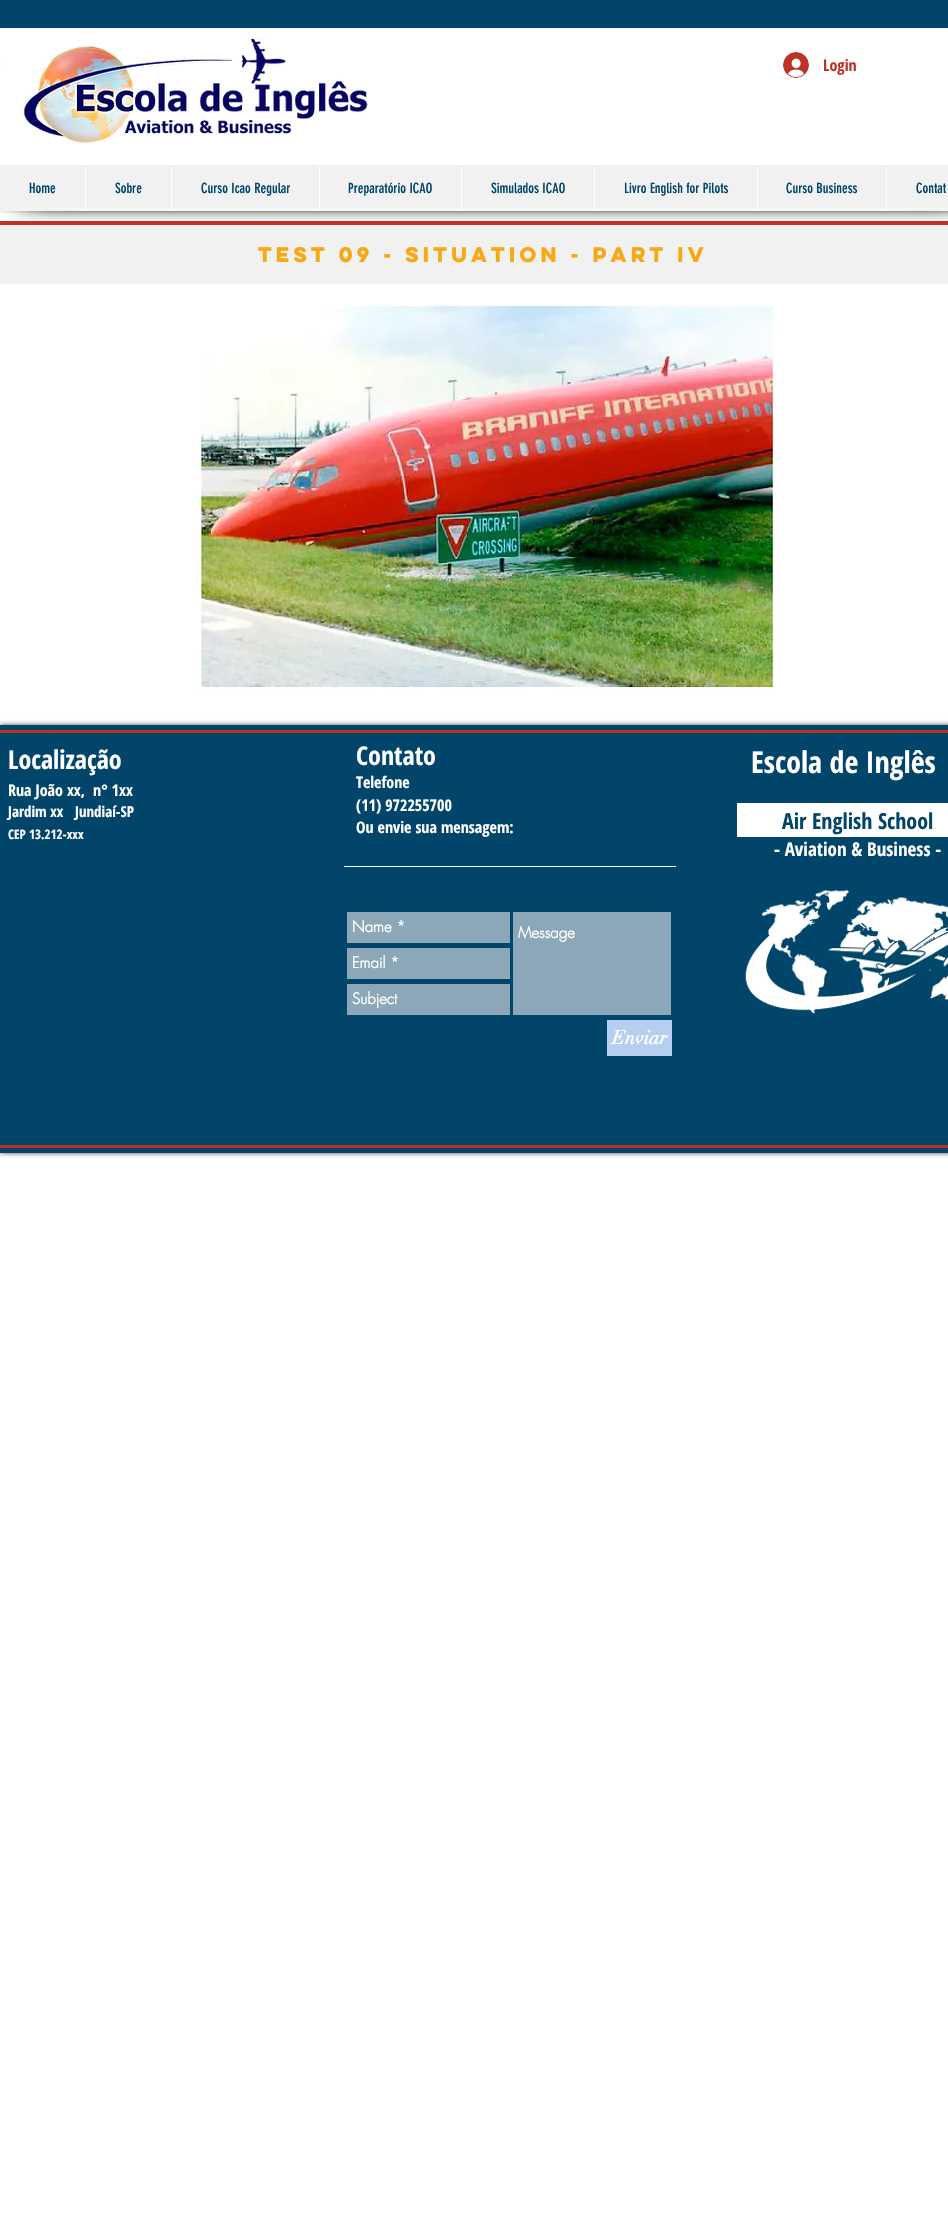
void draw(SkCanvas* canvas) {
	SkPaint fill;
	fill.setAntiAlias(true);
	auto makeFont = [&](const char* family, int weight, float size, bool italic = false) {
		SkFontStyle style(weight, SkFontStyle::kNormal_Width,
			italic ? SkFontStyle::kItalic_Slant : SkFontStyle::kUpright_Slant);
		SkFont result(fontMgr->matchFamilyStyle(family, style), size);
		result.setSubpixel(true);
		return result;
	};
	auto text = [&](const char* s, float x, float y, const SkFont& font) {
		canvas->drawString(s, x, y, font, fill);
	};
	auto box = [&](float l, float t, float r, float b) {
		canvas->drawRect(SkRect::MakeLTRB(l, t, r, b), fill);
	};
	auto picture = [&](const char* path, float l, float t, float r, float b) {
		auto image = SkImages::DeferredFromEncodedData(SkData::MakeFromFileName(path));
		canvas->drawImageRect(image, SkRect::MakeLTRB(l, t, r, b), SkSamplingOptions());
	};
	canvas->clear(0xFFFFFFFF);
	fill.setColor(0xFF01456A);
	box(0, 0, 948, 28);
	picture("image0.png", 0, 37, 368, 143);
	picture("image1.png", 783, 52, 809, 78);
	fill.setColor(0xFFF1F1F1);
	box(0, 165, 948, 213);
	fill.setColor(0xFFFFFFFF);
	box(85, 166, 86, 211);
	box(171, 166, 172, 211);
	box(319, 166, 320, 211);
	box(461, 166, 462, 211);
	box(594, 166, 595, 211);
	box(757, 166, 758, 211);
	box(886, 166, 887, 211);
	fill.setColor(0xFFBC3225);
	box(0, 221, 948, 225);
	picture("image2.png", 3, 208, 100, 222);
	picture("image3.png", 100, 208, 888, 222);
	picture("image4.png", 888, 208, 948, 222);
	fill.setColor(0xFFF1F1F1);
	box(0, 225, 948, 284);
	picture("image5.png", 197, 305, 774, 689);
	fill.setColor(0xB3000000);
	fill.setMaskFilter(SkMaskFilter::MakeBlur(kNormal_SkBlurStyle, 2.5f));
	canvas->drawRect(SkRect::MakeLTRB(0, 725, 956, 1153), fill);
	fill.setMaskFilter(nullptr);
	fill.setColor(0xFF01456A);
	box(0, 725, 948, 1153);
	fill.setColor(0xFFBC3225);
	box(0, 730, 948, 733);
	box(0, 1145, 948, 1148);
	fill.setColor(0xFFFFFFFF);
	box(344, 866, 676, 867);
	fill.setColor(0xFF8BA7B8);
	box(347, 912, 510, 943);
	box(513, 912, 671, 1015);
	box(347, 948, 510, 979);
	box(347, 984, 510, 1015);
	fill.setColor(0xFFB6CEEF);
	box(607, 1020, 672, 1056);
	fill.setColor(0xFFFFFFFF);
	canvas->drawRoundRect(SkRect::MakeLTRB(734.5f, 800.5f, 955.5f, 839.5f), 2.5f, 2.5f, fill);
	fill.setStyle(SkPaint::kStroke_Style);
	fill.setStrokeWidth(5);
	fill.setColor(0xFF01456A);
	canvas->drawRoundRect(SkRect::MakeLTRB(734.5f, 800.5f, 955.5f, 839.5f), 2.5f, 2.5f, fill);
	picture("image6.png", 745, 890, 948, 1014);
	auto font1 = makeFont("Open Sans Condensed", 700, 16);
	fill.setStyle(SkPaint::kFill_Style);
	fill.setColor(0xFFBC3225);
	text("Login", 823, 71, font1);
	auto font2 = makeFont("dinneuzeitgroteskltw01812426", 400, 14);
	fill.setColor(0xFF01456A);
	text("Home", 29, 193, font2);
	text("Sobre", 115, 193, font2);
	text("Curso Icao Regular", 201, 193, font2);
	text("Preparatório ICAO", 348, 193, font2);
	text("Simulados ICAO", 491, 193, font2);
	text("Livro English for Pilots", 624, 193, font2);
	text("Curso Business", 786, 193, font2);
	text("Contat", 916, 193, font2);
	auto font3 = makeFont("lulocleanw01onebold", 700, 19);
	fill.setColor(0xFFF7A814);
	text("Test 09 - Situation - Part IV", 258, 262, font3);
	auto font4 = makeFont("Open Sans Condensed", 700, 26);
	fill.setColor(0xFFFFFFFF);
	text("Localização", 8, 769, font4);
	text("Rua João xx,  n° 1xx", 8, 796, font1);
	auto font5 = makeFont("Open Sans Condensed", 700, 15);
	text("Jardim xx", 8, 817, font5);
	text("Jundiaí-SP", 75, 817, font5);
	auto font6 = makeFont("Open Sans Condensed", 700, 13);
	text("CEP 13.212-xxx", 8, 839, font6);
	text("Contato", 356, 765, font4);
	text("Telefone", 356, 788, font1);
	text("(11) 972255700", 356, 811, font1);
	text("Ou envie sua mensagem:", 356, 833, font1);
	auto font7 = makeFont("futura", 700, 15);
	text("Name *", 352, 932, font7);
	text("Message", 518, 938, font7);
	text("Email *", 352, 968, font7);
	text("Subject", 352, 1004, font7);
	auto font8 = makeFont("didot", 700, 19);
	text("Enviar", 612, 1044, font8);
	auto font9 = makeFont("Open Sans Condensed", 700, 30);
	text("Escola de Inglês", 751, 773, font9);
	auto font10 = makeFont("Open Sans Condensed", 700, 22);
	fill.setColor(0xFF01456A);
	text("Air English School", 782, 829, font10);
	auto font11 = makeFont("Open Sans Condensed", 700, 19);
	fill.setColor(0xFFFFFFFF);
	text("- Aviation & Business -", 774, 856, font11);
}
